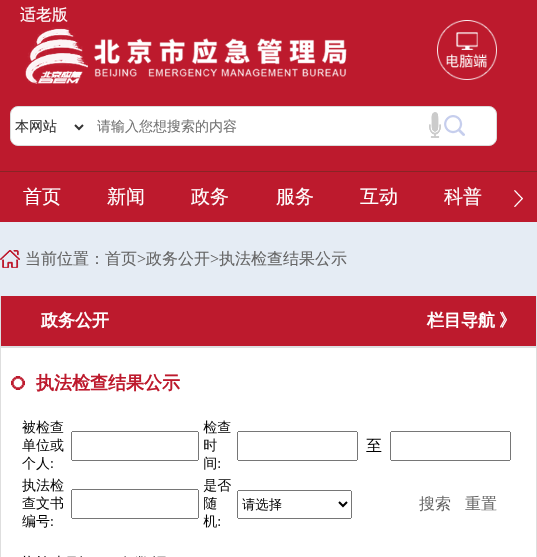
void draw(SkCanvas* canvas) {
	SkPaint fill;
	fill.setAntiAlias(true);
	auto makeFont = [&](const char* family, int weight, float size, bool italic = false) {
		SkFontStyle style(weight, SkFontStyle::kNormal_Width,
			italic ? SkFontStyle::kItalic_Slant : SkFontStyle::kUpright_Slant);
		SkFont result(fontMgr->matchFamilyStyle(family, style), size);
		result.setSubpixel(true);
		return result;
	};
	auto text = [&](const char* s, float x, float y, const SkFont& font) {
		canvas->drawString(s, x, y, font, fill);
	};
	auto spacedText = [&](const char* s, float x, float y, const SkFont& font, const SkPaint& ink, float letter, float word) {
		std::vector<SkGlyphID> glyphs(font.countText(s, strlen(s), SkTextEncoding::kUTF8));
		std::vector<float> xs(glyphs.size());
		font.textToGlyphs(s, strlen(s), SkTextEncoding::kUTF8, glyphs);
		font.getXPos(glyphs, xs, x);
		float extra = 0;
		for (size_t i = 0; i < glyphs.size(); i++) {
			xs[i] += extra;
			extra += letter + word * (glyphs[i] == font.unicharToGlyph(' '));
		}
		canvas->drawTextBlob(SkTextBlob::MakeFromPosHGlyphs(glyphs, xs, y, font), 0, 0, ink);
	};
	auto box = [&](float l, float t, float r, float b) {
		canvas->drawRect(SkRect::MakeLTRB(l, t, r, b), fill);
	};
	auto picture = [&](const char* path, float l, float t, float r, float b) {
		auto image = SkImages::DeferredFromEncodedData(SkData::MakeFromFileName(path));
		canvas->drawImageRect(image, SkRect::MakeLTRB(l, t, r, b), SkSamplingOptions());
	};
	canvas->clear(0xFFE5ECF4);
	fill.setColor(0xFFBD1A2D);
	box(0, 0, 537, 171);
	fill.setColor(0xFF892425);
	box(0, 171, 537, 172);
	picture("image0.png", 25, 27, 347, 84);
	picture("image1.png", 437, 20, 497, 80);
	fill.setColor(0xFFFFFFFF);
	canvas->drawRoundRect(SkRect::MakeLTRB(10.5f, 106.5f, 496.5f, 145.5f), 7.5f, 7.5f, fill);
	fill.setStyle(SkPaint::kStroke_Style);
	fill.setStrokeWidth(1);
	fill.setColor(0xFFDBDBDB);
	canvas->drawRoundRect(SkRect::MakeLTRB(10.5f, 106.5f, 496.5f, 145.5f), 7.5f, 7.5f, fill);
	fill.setStrokeWidth(2);
	fill.setColor(0xFF333333);
	canvas->drawPath(SkPathBuilder().moveTo(75, 125).lineTo(79, 129).lineTo(83, 125).detach(), fill);
	picture("image2.png", 429, 112, 441, 138);
	picture("image3.png", 444, 115, 465, 136);
	fill.setStyle(SkPaint::kFill_Style);
	fill.setColor(0xFFBD1A2D);
	box(0, 172, 537, 222);
	picture("image4.png", 514, 190, 523, 207);
	picture("image5.png", 0, 250, 20, 268);
	fill.setColor(0xFFDCDFE2);
	box(536, 296, 537, 347);
	box(0, 346, 537, 347);
	box(0, 296, 1, 347);
	fill.setColor(0xFFBD1A2D);
	box(1, 296, 536, 346);
	fill.setColor(0xFFFFFFFF);
	canvas->drawRect(SkRect::MakeLTRB(0.5f, 347.5f, 536.5f, 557.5f), fill);
	fill.setStyle(SkPaint::kStroke_Style);
	fill.setStrokeWidth(1);
	fill.setColor(0xFFDEDEDE);
	canvas->drawRect(SkRect::MakeLTRB(0.5f, 347.5f, 536.5f, 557.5f), fill);
	picture("image6.png", 11, 376, 25, 390);
	picture("image7.png", 22, 420, 511, 557);
	auto font1 = makeFont("WenQuanYi Zen Hei", 500, 16);
	fill.setStyle(SkPaint::kFill_Style);
	fill.setColor(0xFFFFFFFF);
	text("适老版", 20, 20, font1);
	auto font2 = makeFont("WenQuanYi Zen Hei", 500, 14);
	fill.setColor(0xFF333333);
	text("本网站", 15, 131, font2);
	fill.setColor(0xFF757575);
	text("请输入您想搜索的内容", 97, 131, font2);
	auto font3 = makeFont("WenQuanYi Zen Hei", 500, 19);
	fill.setColor(0xFFFFFFFF);
	text("首页", 23, 203, font3);
	text("新闻", 107, 203, font3);
	text("政务", 191, 203, font3);
	text("服务", 276, 203, font3);
	text("互动", 360, 203, font3);
	text("科普", 444, 203, font3);
	fill.setColor(0xFF666666);
	text("当前位置：首页", 25, 264, font1);
	auto font4 = makeFont("Liberation Serif", 400, 16);
	text(">", 137, 264, font4);
	text("政务公开", 146, 264, font1);
	text(">", 210, 264, font4);
	text("执法检查结果公示", 219, 264, font1);
	auto font5 = makeFont("WenQuanYi Zen Hei", 700, 17);
	fill.setColor(0xFFFFFFFF);
	text("政务公开", 41, 326, font5);
	spacedText("栏目导航 》", 427, 326, font5, fill, 0, -1);
	auto font6 = makeFont("WenQuanYi Zen Hei", 700, 18);
	fill.setColor(0xFFBD1A2D);
	text("执法检查结果公示", 36, 389, font6);
}
